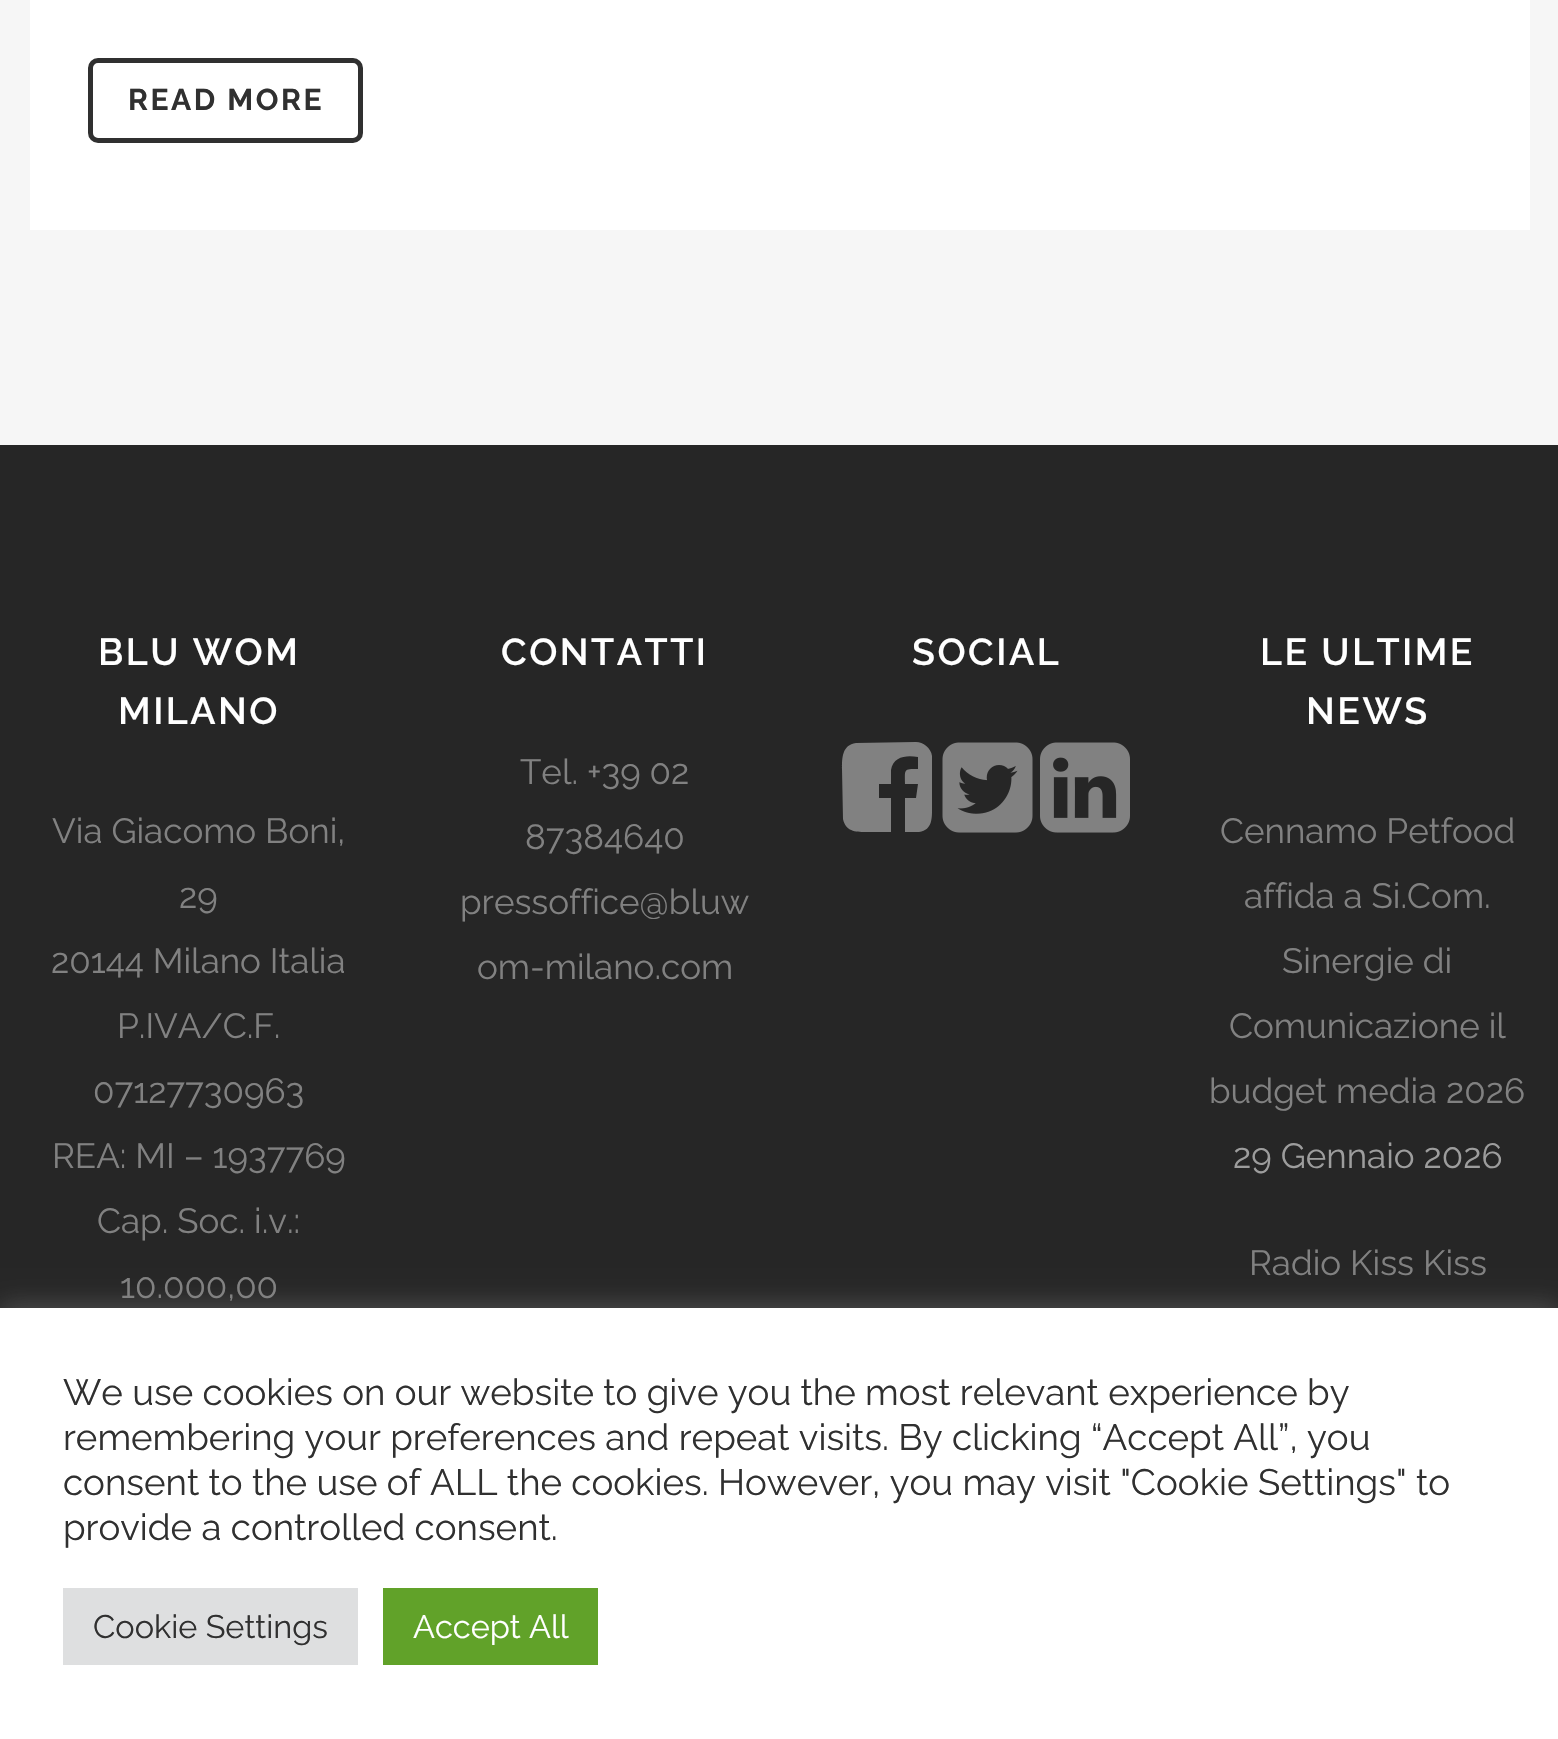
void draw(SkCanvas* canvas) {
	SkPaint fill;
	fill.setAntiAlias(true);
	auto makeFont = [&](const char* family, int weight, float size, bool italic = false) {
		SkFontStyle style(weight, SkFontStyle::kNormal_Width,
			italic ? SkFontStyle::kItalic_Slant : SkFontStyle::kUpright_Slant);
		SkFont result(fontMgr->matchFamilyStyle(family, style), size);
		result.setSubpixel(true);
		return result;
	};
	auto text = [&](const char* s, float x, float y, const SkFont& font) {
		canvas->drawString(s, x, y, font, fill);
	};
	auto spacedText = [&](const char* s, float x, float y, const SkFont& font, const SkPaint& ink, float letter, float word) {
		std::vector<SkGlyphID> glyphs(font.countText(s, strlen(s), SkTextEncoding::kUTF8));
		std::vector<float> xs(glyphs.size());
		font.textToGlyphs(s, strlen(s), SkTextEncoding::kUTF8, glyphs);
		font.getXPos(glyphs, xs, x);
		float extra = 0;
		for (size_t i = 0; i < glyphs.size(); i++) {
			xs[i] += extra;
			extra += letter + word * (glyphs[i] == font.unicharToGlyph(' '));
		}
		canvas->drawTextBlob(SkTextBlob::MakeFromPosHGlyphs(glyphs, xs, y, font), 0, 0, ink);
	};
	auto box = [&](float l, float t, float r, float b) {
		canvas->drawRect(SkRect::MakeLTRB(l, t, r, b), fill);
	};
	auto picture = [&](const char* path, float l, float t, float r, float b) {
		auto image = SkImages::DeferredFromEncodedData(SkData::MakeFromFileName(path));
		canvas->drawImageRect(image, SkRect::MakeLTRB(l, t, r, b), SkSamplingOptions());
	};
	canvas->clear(0xFFF6F6F6);
	fill.setColor(0xFFFFFFFF);
	box(30, 0, 1530, 230);
	fill.setStyle(SkPaint::kStroke_Style);
	fill.setStrokeWidth(5);
	fill.setColor(0xFF303030);
	canvas->drawRoundRect(SkRect::MakeLTRB(90.5f, 60.5f, 360.5f, 140.5f), 7.5f, 7.5f, fill);
	fill.setStyle(SkPaint::kFill_Style);
	fill.setColor(0xFF262626);
	box(0, 445, 1558, 1308);
	fill.setColor(0xFF818181);
	canvas->drawPath(SkPathBuilder().moveTo(916, 742).cubicTo(923, 742, 931, 748, 932, 756).lineTo(932, 806).cubicTo(932, 817, 933, 830, 919, 832).lineTo(905, 832).lineTo(905, 798).lineTo(916, 798).lineTo(918, 784).lineTo(905, 784).cubicTo(905, 769, 903, 769, 918, 769).lineTo(918, 757).cubicTo(907, 755, 893, 756, 891, 770).lineTo(891, 784).lineTo(879, 784).lineTo(879, 798).lineTo(891, 798).lineTo(891, 832).lineTo(870, 832).cubicTo(858, 832, 846, 833, 843, 819).lineTo(842, 769).cubicTo(842, 758, 842, 745, 856, 743).close().detach(), fill);
	picture("image0.png", 942, 742, 1033, 833);
	picture("image1.png", 1040, 742, 1130, 833);
	fill.setColor(0x4DACABAB);
	fill.setMaskFilter(SkMaskFilter::MakeBlur(kNormal_SkBlurStyle, 12.5f));
	canvas->drawRect(SkRect::MakeLTRB(0, 1305, 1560, 1738), fill);
	fill.setMaskFilter(nullptr);
	fill.setColor(0xFFFFFFFF);
	box(0, 1308, 1558, 1739);
	fill.setColor(0xFFDEDFE0);
	box(63, 1588, 358, 1665);
	fill.setColor(0xFF61A229);
	box(383, 1588, 598, 1665);
	auto font1 = makeFont("Raleway", 700, 30);
	fill.setColor(0xFF303030);
	spacedText("READ MORE", 128, 110, font1, fill, 2.5f, 0);
	auto font2 = makeFont("Raleway", 600, 37.5f);
	fill.setColor(0xFFFFFFFF);
	spacedText("BLU WOM", 98, 665, font2, fill, 2.5f, 0);
	spacedText("MILANO", 118, 724, font2, fill, 2.5f, 0);
	auto font3 = makeFont("Raleway", 400, 35);
	fill.setColor(0xFF818181);
	text("Via Giacomo Boni,", 52, 843, font3);
	text("29", 179, 908, font3);
	text("20144 Milano Italia", 51, 973, font3);
	text("P.IVA/C.F.", 117, 1038, font3);
	text("07127730963", 93, 1103, font3);
	text("REA: MI – 1937769", 52, 1168, font3);
	text("Cap. Soc. i.v.:", 97, 1233, font3);
	text("10.000,00", 120, 1298, font3);
	fill.setColor(0xFFFFFFFF);
	spacedText("CONTATTI", 501, 665, font2, fill, 2.5f, 0);
	fill.setColor(0xFF818181);
	text("Tel. +39 02", 520, 784, font3);
	text("87384640", 525, 849, font3);
	text("pressoffice@bluw", 460, 914, font3);
	text("om-milano.com", 477, 979, font3);
	fill.setColor(0xFFFFFFFF);
	spacedText("SOCIAL", 912, 665, font2, fill, 2.5f, 0);
	spacedText("LE ULTIME", 1260, 665, font2, fill, 2.5f, 0);
	spacedText("NEWS", 1306, 724, font2, fill, 2.5f, 0);
	fill.setColor(0xFF818181);
	text("Cennamo Petfood", 1220, 843, font3);
	text("affida a Si.Com.", 1244, 908, font3);
	text("Sinergie di", 1282, 973, font3);
	text("Comunicazione il", 1229, 1038, font3);
	text("budget media 2026", 1209, 1103, font3);
	fill.setColor(0xFF9D9D9D);
	text("29 Gennaio 2026", 1233, 1168, font3);
	fill.setColor(0xFF818181);
	text("Radio Kiss Kiss", 1249, 1275, font3);
	auto font4 = makeFont("Raleway", 400, 36.65f);
	fill.setColor(0xFF303030);
	text("We use cookies on our website to give you the most relevant experience by", 63, 1405, font4);
	text("remembering your preferences and repeat visits. By clicking “Accept All”, you", 63, 1450, font4);
	text("consent to the use of ALL the cookies. However, you may visit \"Cookie Settings\" to", 63, 1495, font4);
	text("provide a controlled consent.", 63, 1540, font4);
	auto font5 = makeFont("Raleway", 400, 32.5f);
	text("Cookie Settings", 93, 1638, font5);
	fill.setColor(0xFFFFFFFF);
	text("Accept All", 413, 1638, font5);
}
